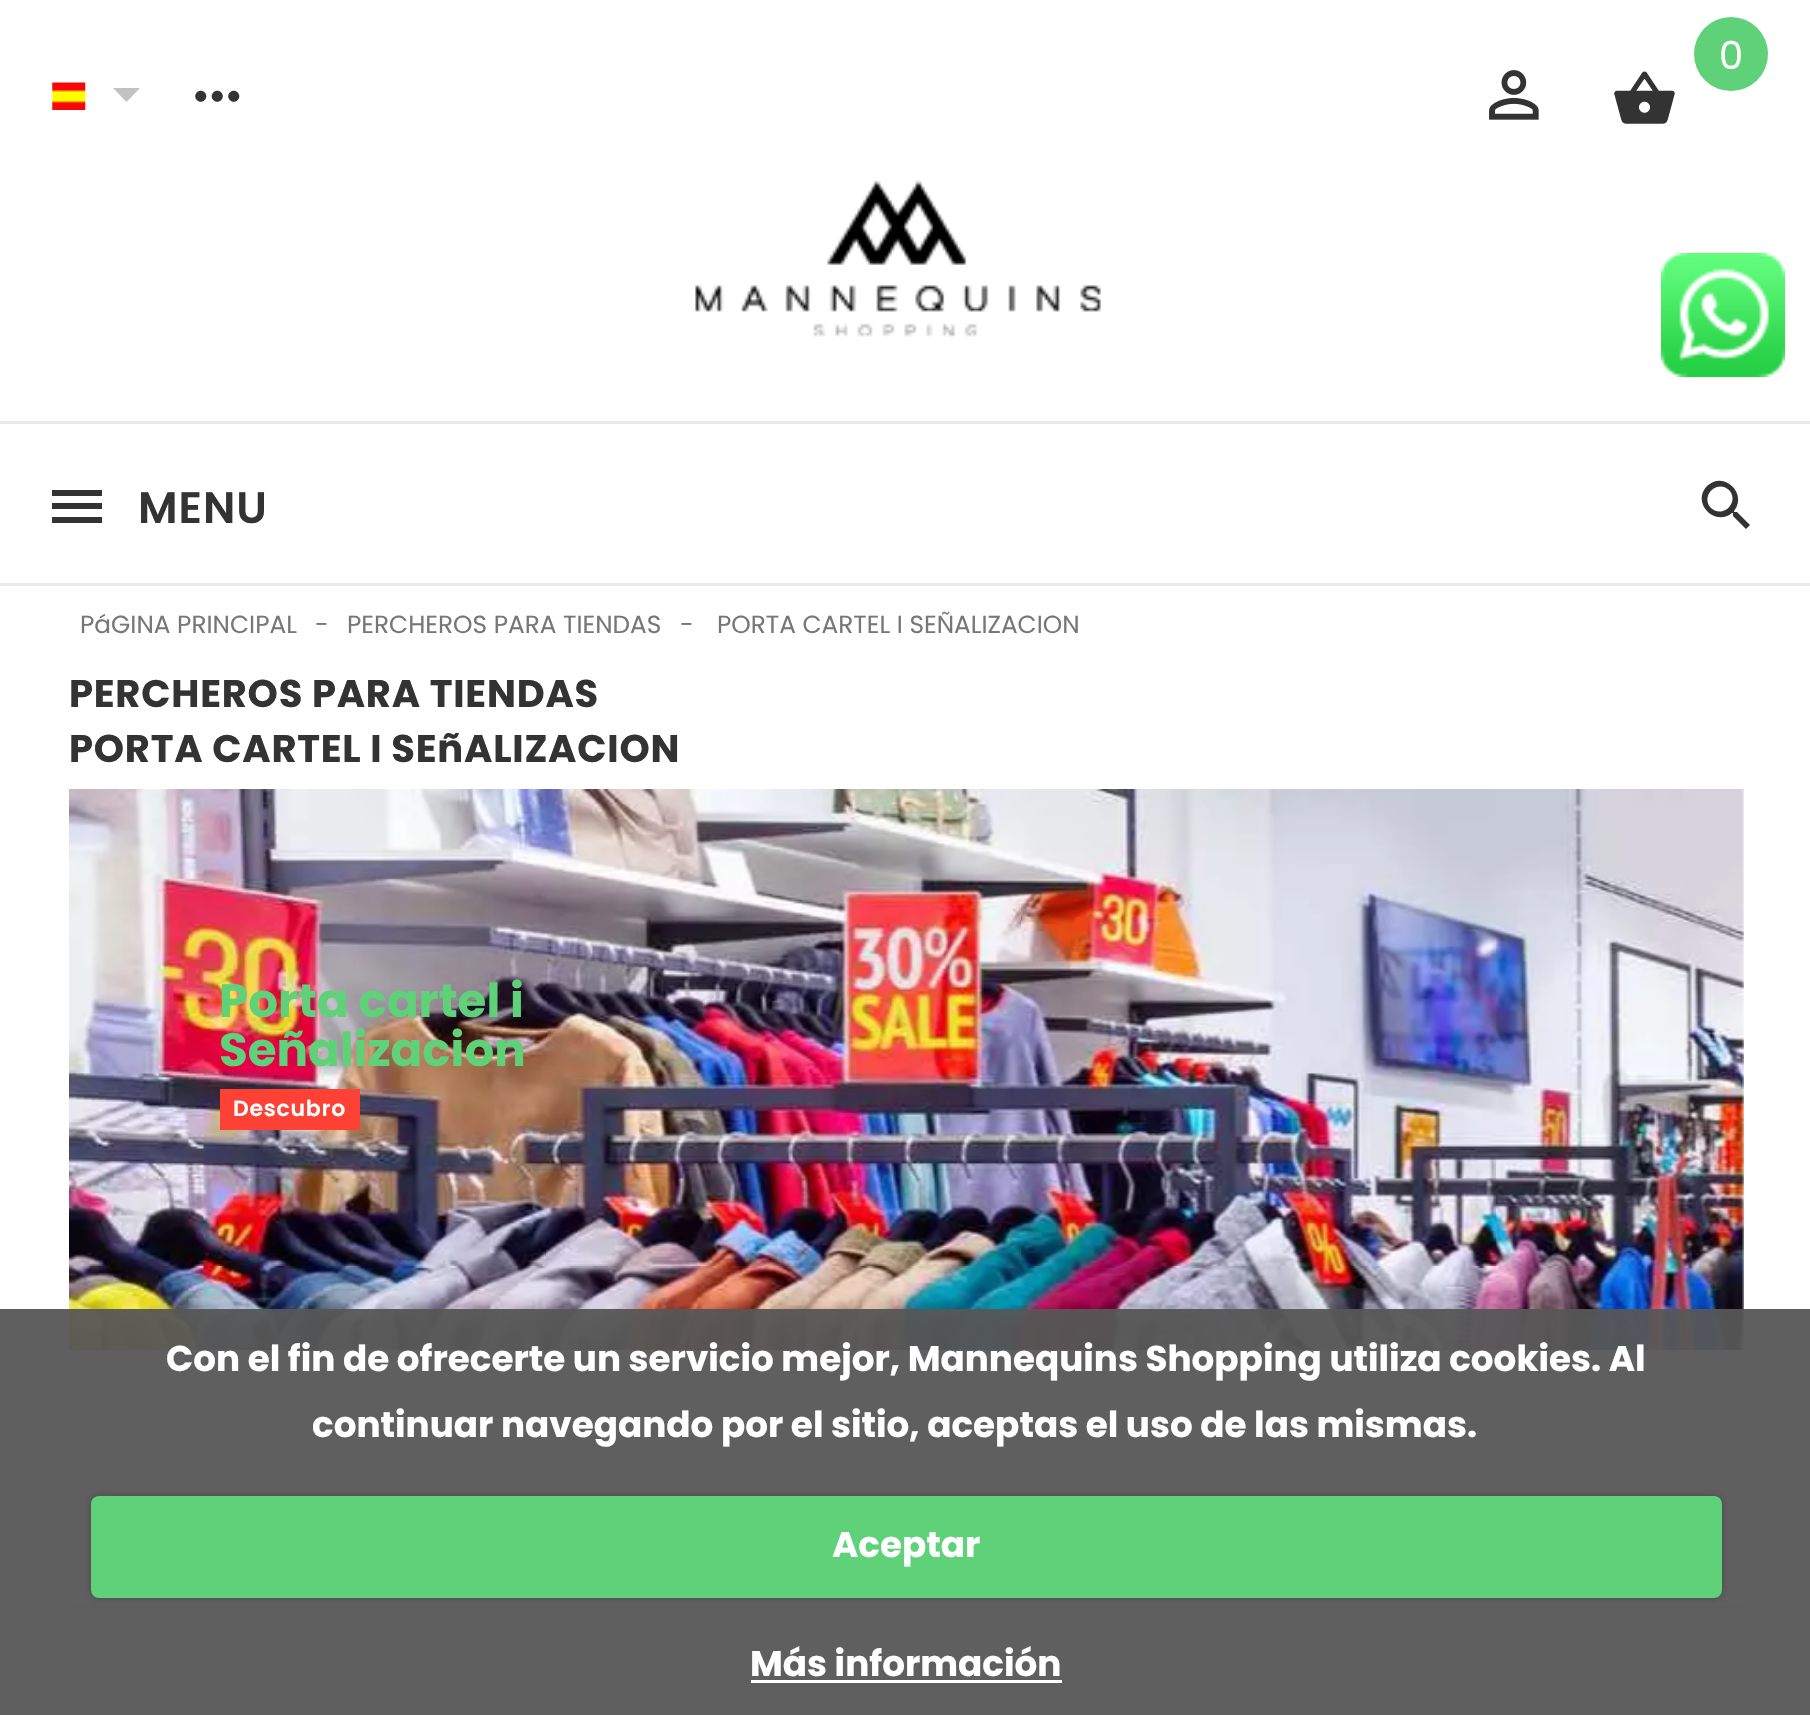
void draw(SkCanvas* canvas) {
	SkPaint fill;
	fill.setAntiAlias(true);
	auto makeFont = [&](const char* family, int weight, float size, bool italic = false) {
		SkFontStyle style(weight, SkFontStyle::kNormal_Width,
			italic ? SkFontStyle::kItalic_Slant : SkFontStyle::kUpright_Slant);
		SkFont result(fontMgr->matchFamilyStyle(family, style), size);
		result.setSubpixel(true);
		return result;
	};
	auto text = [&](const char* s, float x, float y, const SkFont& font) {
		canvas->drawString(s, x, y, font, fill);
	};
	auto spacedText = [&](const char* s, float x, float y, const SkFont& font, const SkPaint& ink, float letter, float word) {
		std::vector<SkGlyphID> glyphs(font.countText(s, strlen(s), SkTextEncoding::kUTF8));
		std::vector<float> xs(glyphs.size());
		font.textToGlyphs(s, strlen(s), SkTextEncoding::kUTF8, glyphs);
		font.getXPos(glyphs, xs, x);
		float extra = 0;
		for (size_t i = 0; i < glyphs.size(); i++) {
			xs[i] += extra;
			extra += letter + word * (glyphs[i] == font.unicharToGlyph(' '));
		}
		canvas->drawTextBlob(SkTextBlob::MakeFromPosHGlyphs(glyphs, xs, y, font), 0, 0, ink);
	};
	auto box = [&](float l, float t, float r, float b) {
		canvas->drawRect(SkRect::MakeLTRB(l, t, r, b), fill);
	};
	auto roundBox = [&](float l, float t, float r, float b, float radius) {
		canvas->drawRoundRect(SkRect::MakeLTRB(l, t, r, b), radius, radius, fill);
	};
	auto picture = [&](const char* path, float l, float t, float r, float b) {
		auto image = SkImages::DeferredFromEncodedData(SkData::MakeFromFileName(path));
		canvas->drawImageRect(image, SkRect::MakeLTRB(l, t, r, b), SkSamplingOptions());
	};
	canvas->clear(0xFFFFFFFF);
	fill.setColor(0xFF5FD179);
	canvas->drawCircle(1731, 54, 37, fill);
	picture("image0.png", 1614, 71, 1675, 124);
	picture("image1.png", 1489, 70, 1539, 120);
	picture("image2.png", 52, 82, 86, 110);
	fill.setColor(0xFFC2C2C2);
	canvas->drawPath(SkPathBuilder().moveTo(113, 88).lineTo(140, 88).lineTo(126.5f, 102).close().detach(), fill);
	picture("image3.png", 195, 90, 240, 102);
	picture("image4.png", 695, 180, 1101, 337);
	fill.setColor(0xFFE9E9E9);
	box(0, 421, 1810, 424);
	box(0, 583, 1810, 586);
	fill.setColor(0xFF333333);
	box(52, 490, 102, 496);
	box(52, 503, 102, 509);
	box(52, 517, 102, 523);
	canvas->drawPath(SkPathBuilder().moveTo(1711, 508).cubicTo(1723, 519, 1740, 502, 1729, 490).cubicTo(1717, 479, 1700, 496, 1711, 508).close().moveTo(1737, 512).lineTo(1750, 525).lineTo(1746, 529).lineTo(1733, 516).lineTo(1733, 513).lineTo(1732, 513).cubicTo(1715, 527, 1691, 503, 1707, 486).cubicTo(1724, 470, 1748, 494, 1734, 511).lineTo(1734, 512).close().detach(), fill);
	picture("image5.png", 1661, 253, 1785, 377);
	picture("image6.png", 69, 789, 1744, 1350);
	fill.setColor(0xFFFE4135);
	box(220, 1089, 360, 1130);
	fill.setColor(0xFFE9E9E9);
	box(69, 1606, 1744, 1609);
	fill.setColor(0xF2565656);
	box(0, 1309, 1810, 1715);
	fill.setColor(0x40000000);
	fill.setMaskFilter(SkMaskFilter::MakeBlur(kNormal_SkBlurStyle, 3));
	canvas->drawRoundRect(SkRect::MakeLTRB(91, 1496, 1722, 1598), 8, 8, fill);
	fill.setMaskFilter(nullptr);
	fill.setColor(0xFF5FD179);
	roundBox(91, 1496, 1722, 1598, 8);
	fill.setColor(0xFFFFFFFF);
	box(751, 1680, 1062, 1683);
	auto font1 = makeFont("Poppins", 400, 38.5f);
	text("0", 1719, 69, font1);
	auto font2 = makeFont("Poppins", 600, 44);
	fill.setColor(0xFF333333);
	spacedText("MENU", 138, 523, font2, fill, 1, 0);
	auto font3 = makeFont("Poppins", 400, 24.75f);
	fill.setColor(0xFF777777);
	text("PáGINA PRINCIPAL", 80, 633, font3);
	text("-", 315, 633, font3);
	text("PERCHEROS PARA TIENDAS", 347, 633, font3);
	text("-", 680, 633, font3);
	text("PORTA CARTEL I SEÑALIZACION", 717, 633, font3);
	auto font4 = makeFont("Poppins", 700, 38.5f);
	fill.setColor(0xFF333333);
	spacedText("PERCHEROS PARA TIENDAS", 69, 707, font4, fill, 0.75f, 0);
	spacedText("PORTA CARTEL I SEñALIZACION", 69, 762, font4, fill, 0.75f, 0);
	auto font5 = makeFont("Poppins", 700, 46.75f);
	fill.setColor(0xFF5FD179);
	text("Porta cartel i", 219, 1017, font5);
	text("Señalizacion", 219, 1066, font5);
	auto font6 = makeFont("Poppins", 600, 22);
	fill.setColor(0xFFFFFFFF);
	spacedText("Descubro", 233, 1116, font6, fill, 0.75f, 0);
	auto font7 = makeFont("Poppins", 700, 35.75f);
	text("Con el fin de ofrecerte un servicio mejor, Mannequins Shopping utiliza cookies. Al", 166, 1371, font7);
	text("continuar navegando por el sitio, aceptas el uso de las mismas.", 312, 1437, font7);
	text("Aceptar", 832, 1557, font7);
	text("Más información", 750, 1676, font7);
}
